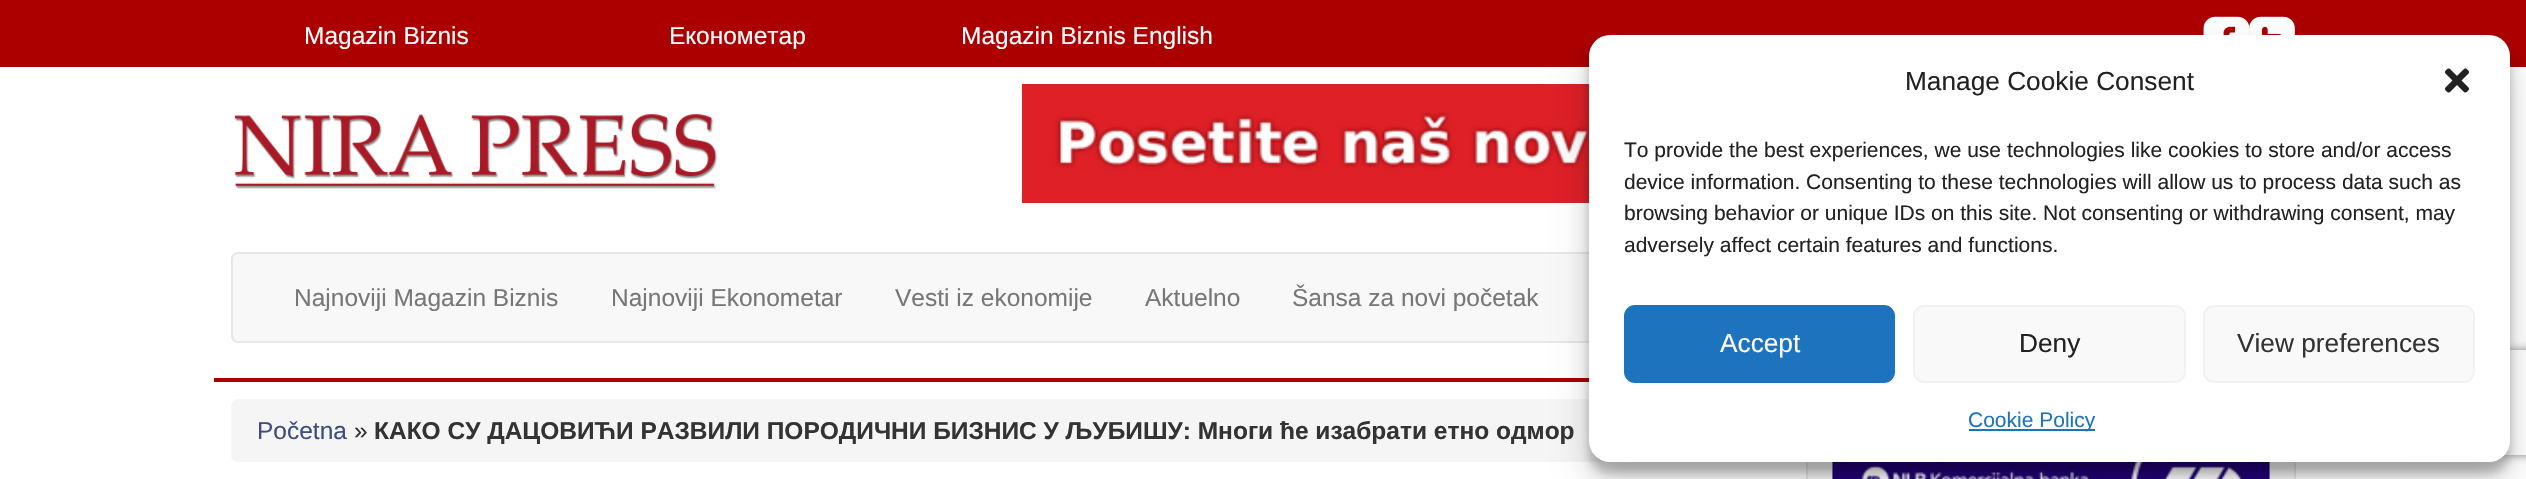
void draw(SkCanvas* canvas) {
	SkPaint fill;
	fill.setAntiAlias(true);
	auto makeFont = [&](const char* family, int weight, float size, bool italic = false) {
		SkFontStyle style(weight, SkFontStyle::kNormal_Width,
			italic ? SkFontStyle::kItalic_Slant : SkFontStyle::kUpright_Slant);
		SkFont result(fontMgr->matchFamilyStyle(family, style), size);
		result.setSubpixel(true);
		return result;
	};
	auto text = [&](const char* s, float x, float y, const SkFont& font) {
		canvas->drawString(s, x, y, font, fill);
	};
	auto box = [&](float l, float t, float r, float b) {
		canvas->drawRect(SkRect::MakeLTRB(l, t, r, b), fill);
	};
	auto roundBox = [&](float l, float t, float r, float b, float radius) {
		canvas->drawRoundRect(SkRect::MakeLTRB(l, t, r, b), radius, radius, fill);
	};
	auto picture = [&](const char* path, float l, float t, float r, float b) {
		auto image = SkImages::DeferredFromEncodedData(SkData::MakeFromFileName(path));
		canvas->drawImageRect(image, SkRect::MakeLTRB(l, t, r, b), SkSamplingOptions());
	};
	canvas->clear(0xFFFFFFFF);
	fill.setColor(0xFFAC0000);
	box(0, 0, 2526, 67);
	picture("image0.png", 2203, 16, 2250, 35);
	picture("image1.png", 2249, 16, 2295, 35);
	picture("image2.png", 234, 114, 717, 189);
	picture("image3.png", 1022, 84, 1589, 203);
	fill.setColor(0xFFAE0000);
	box(214, 378, 1589, 382);
	fill.setColor(0xFFF8F8F8);
	canvas->drawRoundRect(SkRect::MakeLTRB(232, 253, 2295, 342), 6, 6, fill);
	fill.setStyle(SkPaint::kStroke_Style);
	fill.setStrokeWidth(2);
	fill.setColor(0xFFE7E7E7);
	canvas->drawRoundRect(SkRect::MakeLTRB(232, 253, 2295, 342), 6, 6, fill);
	fill.setStyle(SkPaint::kFill_Style);
	fill.setColor(0xFFF5F5F5);
	roundBox(231, 399, 1771, 462, 7);
	fill.setColor(0xFFF8F8F8);
	box(1808, 462, 2294, 479);
	fill.setStyle(SkPaint::kStroke_Style);
	fill.setColor(0xFFE7E7E7);
	canvas->drawRect(SkRect::MakeLTRB(1807, 400, 2295, 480), fill);
	picture("image5.png", 1832, 462, 2270, 479);
	fill.setStyle(SkPaint::kFill_Style);
	fill.setColor(0x3B000000);
	fill.setMaskFilter(SkMaskFilter::MakeBlur(kNormal_SkBlurStyle, 5));
	canvas->drawRoundRect(SkRect::MakeLTRB(1589, 46, 2510, 473), 21, 21, fill);
	fill.setMaskFilter(nullptr);
	fill.setColor(0x30000000);
	fill.setMaskFilter(SkMaskFilter::MakeBlur(kNormal_SkBlurStyle, 17.5f));
	canvas->drawRoundRect(SkRect::MakeLTRB(1589, 53, 2510, 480), 21, 21, fill);
	fill.setMaskFilter(nullptr);
	canvas->save();
	canvas->clipPath(SkPathBuilder(SkPathFillType::kEvenOdd).moveTo(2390, 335).lineTo(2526, 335).lineTo(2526, 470).lineTo(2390, 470).close().moveTo(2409, 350).lineTo(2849, 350).cubicTo(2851, 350, 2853, 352, 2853, 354).lineTo(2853, 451).cubicTo(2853, 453, 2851, 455, 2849, 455).lineTo(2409, 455).cubicTo(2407, 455, 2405, 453, 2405, 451).lineTo(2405, 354).cubicTo(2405, 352, 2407, 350, 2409, 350).close().detach(), true);
	fill.setColor(0xFF808080);
	fill.setMaskFilter(SkMaskFilter::MakeBlur(kNormal_SkBlurStyle, 4.5f));
	canvas->drawRoundRect(SkRect::MakeLTRB(2405, 350, 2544, 455), 4, 4, fill);
	fill.setMaskFilter(nullptr);
	canvas->restore();
	fill.setColor(0xFFFFFFFF);
	roundBox(1589, 35, 2510, 462, 21);
	picture("image4.png", 2445, 68, 2469, 93);
	fill.setColor(0xFF1E73BE);
	canvas->drawRoundRect(SkRect::MakeLTRB(1625, 306, 1894, 382), 10, 10, fill);
	fill.setStyle(SkPaint::kStroke_Style);
	canvas->drawRoundRect(SkRect::MakeLTRB(1625, 306, 1894, 382), 10, 10, fill);
	fill.setStyle(SkPaint::kFill_Style);
	fill.setColor(0xFFF9F9F9);
	canvas->drawRoundRect(SkRect::MakeLTRB(1914, 306, 2185, 382), 10, 10, fill);
	fill.setStyle(SkPaint::kStroke_Style);
	fill.setColor(0xFFF2F2F2);
	canvas->drawRoundRect(SkRect::MakeLTRB(1914, 306, 2185, 382), 10, 10, fill);
	fill.setStyle(SkPaint::kFill_Style);
	fill.setColor(0xFFF9F9F9);
	canvas->drawRoundRect(SkRect::MakeLTRB(2204, 306, 2474, 382), 10, 10, fill);
	fill.setStyle(SkPaint::kStroke_Style);
	fill.setColor(0xFFF2F2F2);
	canvas->drawRoundRect(SkRect::MakeLTRB(2204, 306, 2474, 382), 10, 10, fill);
	fill.setStyle(SkPaint::kFill_Style);
	fill.setColor(0xFF1E73BE);
	box(1969, 429, 2095, 431);
	auto font1 = makeFont("Liberation Sans", 400, 24.5f);
	fill.setColor(0xFFFFFFFF);
	text("Magazin Biznis", 304, 44, font1);
	text("Економетар", 669, 44, font1);
	text("Magazin Biznis English", 961, 44, font1);
	fill.setColor(0xFF777777);
	text("Najnoviji Magazin Biznis", 294, 306, font1);
	text("Najnoviji Ekonometar", 611, 306, font1);
	text("Vesti iz ekonomije", 895, 306, font1);
	text("Aktuelno", 1145, 306, font1);
	text("Šansa za novi početak", 1292, 306, font1);
	auto font2 = makeFont("Liberation Sans", 400, 26.25f);
	fill.setColor(0xFF222222);
	text("Manage Cookie Consent", 1905, 90, font2);
	auto font3 = makeFont("Liberation Sans", 400, 21);
	text("To provide the best experiences, we use technologies like cookies to store and/or access", 1624, 157, font3);
	text("device information. Consenting to these technologies will allow us to process data such as", 1624, 189, font3);
	text("browsing behavior or unique IDs on this site. Not consenting or withdrawing consent, may", 1624, 220, font3);
	text("adversely affect certain features and functions.", 1624, 252, font3);
	fill.setColor(0xFFFFFFFF);
	text("Accept", 1720, 352, font2);
	fill.setColor(0xFF222222);
	text("Deny", 2019, 352, font2);
	fill.setColor(0xFF333333);
	text("View preferences", 2237, 352, font2);
	fill.setColor(0xFF1E73BE);
	text("Cookie Policy", 1968, 427, font3);
	fill.setColor(0xFF3D4D7F);
	text("Početna", 257, 439, font1);
	fill.setColor(0xFF333333);
	text("»", 354, 439, font1);
	auto font4 = makeFont("Liberation Sans", 700, 24.5f);
	text("КАКО СУ ДАЦОВИЋИ РАЗВИЛИ ПОРОДИЧНИ БИЗНИС У ЉУБИШУ: Многи ће изабрати етно одмор", 374, 439, font4);
}
